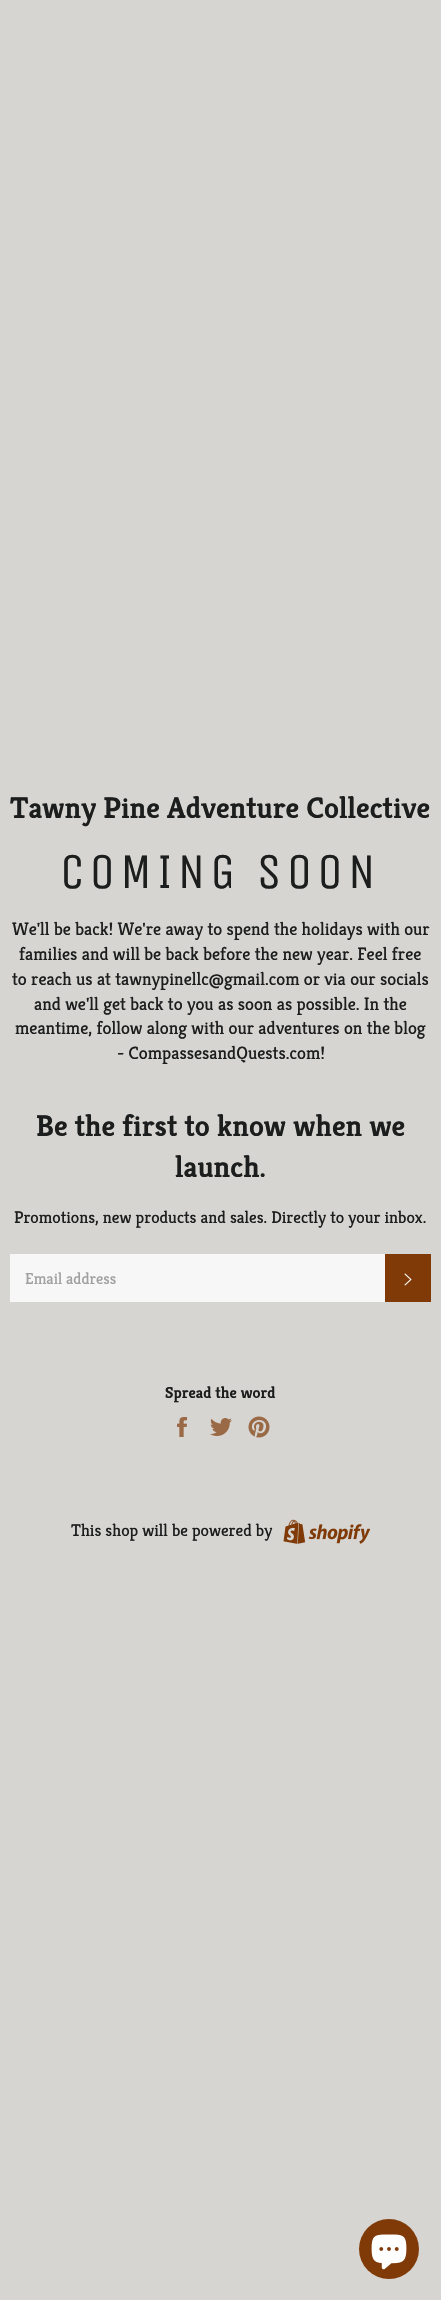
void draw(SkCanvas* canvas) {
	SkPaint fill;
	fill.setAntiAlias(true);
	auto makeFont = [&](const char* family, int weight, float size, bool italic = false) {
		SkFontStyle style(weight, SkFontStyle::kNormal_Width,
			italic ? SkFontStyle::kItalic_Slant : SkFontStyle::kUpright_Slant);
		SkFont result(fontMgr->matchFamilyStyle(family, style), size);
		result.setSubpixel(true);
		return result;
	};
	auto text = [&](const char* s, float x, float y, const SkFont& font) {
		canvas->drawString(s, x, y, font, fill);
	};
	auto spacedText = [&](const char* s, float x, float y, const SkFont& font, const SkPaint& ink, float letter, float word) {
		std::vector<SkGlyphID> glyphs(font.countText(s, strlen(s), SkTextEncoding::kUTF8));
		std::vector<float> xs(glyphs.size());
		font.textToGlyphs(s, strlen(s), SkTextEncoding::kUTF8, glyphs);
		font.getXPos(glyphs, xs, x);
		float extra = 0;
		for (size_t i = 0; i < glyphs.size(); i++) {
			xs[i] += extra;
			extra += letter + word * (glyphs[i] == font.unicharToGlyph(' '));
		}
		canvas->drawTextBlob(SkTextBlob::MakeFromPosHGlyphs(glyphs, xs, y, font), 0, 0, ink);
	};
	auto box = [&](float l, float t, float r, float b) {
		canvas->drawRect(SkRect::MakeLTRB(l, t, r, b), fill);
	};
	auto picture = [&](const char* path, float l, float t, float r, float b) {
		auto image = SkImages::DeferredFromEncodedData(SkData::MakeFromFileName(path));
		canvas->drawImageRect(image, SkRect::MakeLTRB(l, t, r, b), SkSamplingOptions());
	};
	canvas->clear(0xFFD6D5D1);
	fill.setColor(0xFFF7F7F7);
	box(10, 1254, 385, 1302);
	fill.setColor(0xFF803A08);
	box(385, 1254, 431, 1302);
	picture("image0.png", 404, 1273, 412, 1286);
	picture("image1.png", 177, 1417, 187, 1437);
	picture("image2.png", 210, 1418, 232, 1436);
	picture("image3.png", 248, 1416, 270, 1438);
	picture("image4.png", 283, 1519, 370, 1544);
	canvas->drawCircle(389, 2249, 30, fill);
	picture("image5.png", 371, 2234, 407, 2270);
	auto font1 = makeFont("Kreon", 700, 30);
	fill.setColor(0xFF1C1D1D);
	text("Tawny Pine Adventure Collective", 10, 818, font1);
	auto font2 = makeFont("Unica One", 400, 50);
	spacedText("COMING SOON", 60, 888, font2, fill, 5, 0);
	auto font3 = makeFont("Kreon", 400, 18);
	text("We'll be back! We're away to spend the holidays with our", 12, 935, font3);
	text("families and will be back before the new year. Feel free", 19, 960, font3);
	text("to reach us at tawnypinellc@gmail.com or via our socials", 12, 985, font3);
	text("and we'll get back to you as soon as possible. In the", 34, 1010, font3);
	text("meantime, follow along with our adventures on the blog", 15, 1034, font3);
	text("- CompassesandQuests.com!", 117, 1059, font3);
	text("Be the first to know when we", 36, 1136, font1);
	text("launch.", 175, 1177, font1);
	auto font4 = makeFont("Kreon", 400, 17);
	text("Promotions, new products and sales. Directly to your inbox.", 14, 1223, font4);
	auto font5 = makeFont("Kreon", 400, 16);
	fill.setColor(0xFFA0A0A0);
	text("Email address", 25, 1284, font5);
	auto font6 = makeFont("Kreon", 700, 16);
	fill.setColor(0xFF1C1D1D);
	text("Spread the word", 165, 1398, font6);
	text("This shop will be powered by", 71, 1536, font4);
}
